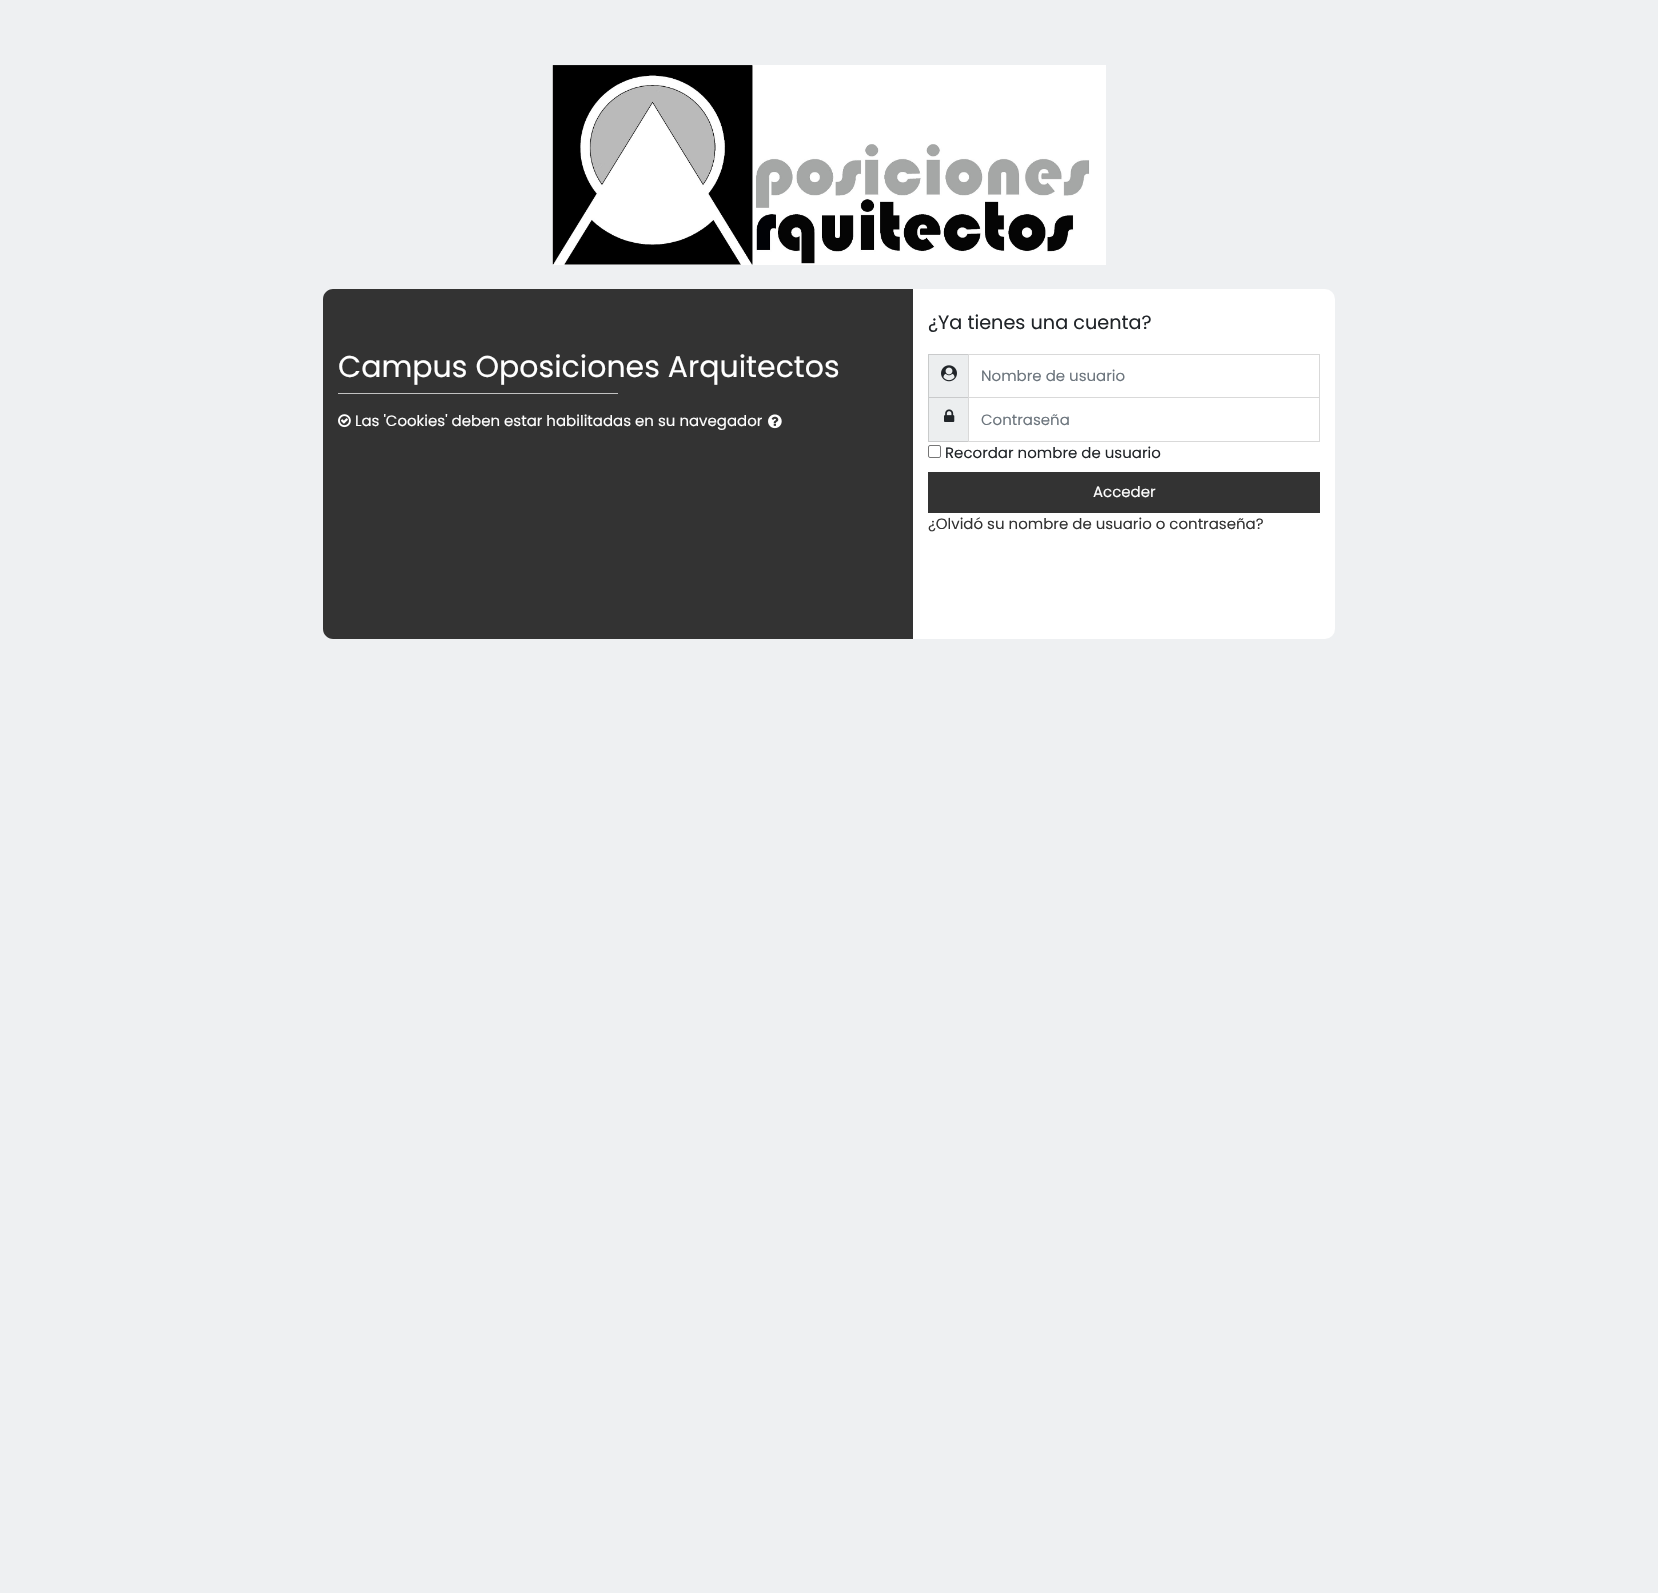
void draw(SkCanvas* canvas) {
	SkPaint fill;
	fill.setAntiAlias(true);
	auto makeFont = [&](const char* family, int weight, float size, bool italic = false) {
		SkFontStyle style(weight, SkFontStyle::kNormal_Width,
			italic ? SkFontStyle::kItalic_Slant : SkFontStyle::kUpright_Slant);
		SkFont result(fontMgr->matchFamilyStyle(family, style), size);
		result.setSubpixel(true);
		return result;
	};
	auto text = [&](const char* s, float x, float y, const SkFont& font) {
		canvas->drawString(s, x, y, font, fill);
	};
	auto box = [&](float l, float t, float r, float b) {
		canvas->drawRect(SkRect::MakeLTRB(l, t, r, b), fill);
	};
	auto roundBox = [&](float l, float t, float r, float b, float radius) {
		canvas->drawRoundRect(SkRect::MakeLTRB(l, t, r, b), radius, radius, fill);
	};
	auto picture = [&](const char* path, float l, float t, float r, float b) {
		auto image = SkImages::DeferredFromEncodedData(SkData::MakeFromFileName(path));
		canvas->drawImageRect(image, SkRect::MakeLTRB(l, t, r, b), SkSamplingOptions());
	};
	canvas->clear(0xFFEEF0F2);
	picture("image0.png", 552, 65, 1106, 265);
	fill.setColor(0xFFFFFFFF);
	roundBox(323, 289, 1335, 639, 10);
	fill.setColor(0xFF333333);
	canvas->drawPath(SkPathBuilder().moveTo(333, 289).lineTo(913, 289).lineTo(913, 639).lineTo(333, 639).cubicTo(327.5f, 639, 323, 634.5f, 323, 629).lineTo(323, 299).cubicTo(323, 293.5f, 327.5f, 289, 333, 289).close().detach(), fill);
	fill.setColor(0xFFC2C2C2);
	box(338, 393, 618, 394);
	picture("image1.png", 338, 414, 351, 428);
	picture("image2.png", 768, 414, 782, 429);
	fill.setColor(0xFFECEEEF);
	box(928, 354, 968, 442);
	fill.setColor(0xFFC9CACB);
	canvas->drawPath(SkPathBuilder().moveTo(928, 354).lineTo(968, 354).lineTo(968, 355).lineTo(929, 355).close().moveTo(968, 398).lineTo(928, 398).lineTo(929, 397).lineTo(968, 397).close().detach(), fill);
	fill.setColor(0x26000000);
	canvas->drawPath(SkPathBuilder().moveTo(928, 398).lineTo(928, 354).lineTo(929, 355).lineTo(929, 397).close().detach(), fill);
	picture("image3.png", 941, 365, 957, 382);
	fill.setStyle(SkPaint::kStroke_Style);
	fill.setStrokeWidth(1);
	fill.setColor(0xFFD9D9D9);
	canvas->drawRect(SkRect::MakeLTRB(968.5f, 354.5f, 1319.5f, 397.5f), fill);
	fill.setStyle(SkPaint::kFill_Style);
	fill.setColor(0xFFC9CACB);
	canvas->drawPath(SkPathBuilder().moveTo(968, 442).lineTo(928, 442).lineTo(929, 441).lineTo(968, 441).close().detach(), fill);
	fill.setColor(0x26000000);
	canvas->drawPath(SkPathBuilder().moveTo(928, 442).lineTo(928, 398).lineTo(929, 398).lineTo(929, 441).close().detach(), fill);
	picture("image4.png", 944, 409, 955, 422);
	fill.setColor(0xFFD9D9D9);
	canvas->drawPath(SkPathBuilder().moveTo(1320, 398).lineTo(1320, 442).lineTo(1319, 441).lineTo(1319, 398).close().detach(), fill);
	fill.setColor(0x26000000);
	canvas->drawPath(SkPathBuilder().moveTo(1320, 442).lineTo(968, 442).lineTo(969, 441).lineTo(1319, 441).close().detach(), fill);
	canvas->drawPath(SkPathBuilder().moveTo(968, 442).lineTo(968, 398).lineTo(969, 398).lineTo(969, 441).close().detach(), fill);
	fill.setStyle(SkPaint::kStroke_Style);
	fill.setColor(0xFF767676);
	canvas->drawRoundRect(SkRect::MakeLTRB(928.5f, 445.5f, 940.5f, 457.5f), 1.5f, 1.5f, fill);
	fill.setStyle(SkPaint::kFill_Style);
	fill.setColor(0xFF333333);
	box(928, 472, 1320, 513);
	auto font1 = makeFont("Poppins", 400, 30);
	fill.setColor(0xFFFFFFFF);
	text("Campus Oposiciones Arquitectos", 338, 377, font1);
	auto font2 = makeFont("Poppins", 400, 15);
	text("Las 'Cookies' deben estar habilitadas en su navegador", 355, 426, font2);
	auto font3 = makeFont("Poppins", 400, 19.25f);
	fill.setColor(0xFF212529);
	text("¿Ya tienes una cuenta?", 928, 329, font3);
	fill.setColor(0xFF6C757D);
	text("Nombre de usuario", 981, 381, font2);
	text("Contraseña", 981, 425, font2);
	fill.setColor(0xFF212529);
	text("Recordar nombre de usuario", 945, 458, font2);
	fill.setColor(0xFFFFFFFF);
	text("Acceder", 1093, 497, font2);
	fill.setColor(0xFF333333);
	text("¿Olvidó su nombre de usuario o contraseña?", 928, 529, font2);
}
